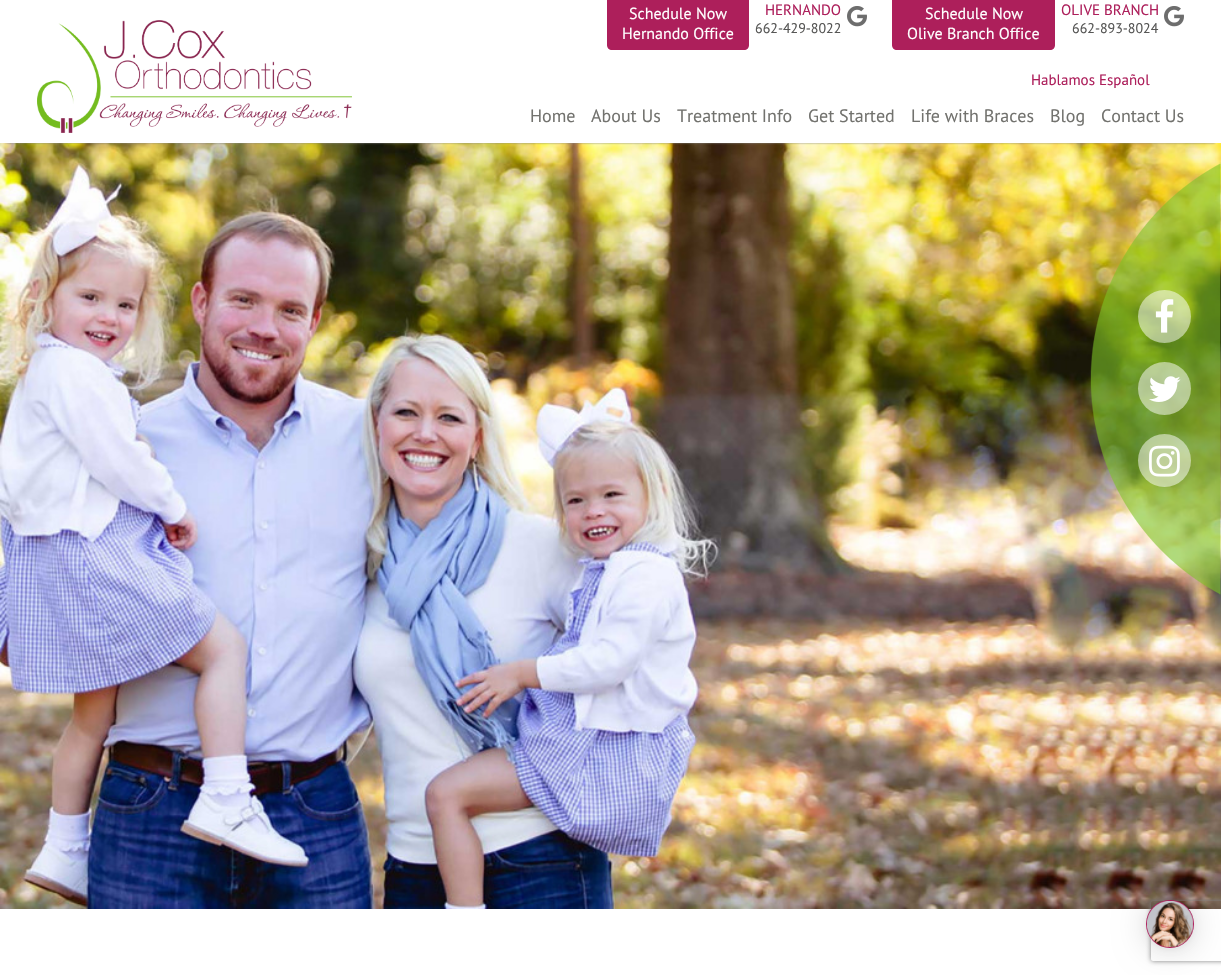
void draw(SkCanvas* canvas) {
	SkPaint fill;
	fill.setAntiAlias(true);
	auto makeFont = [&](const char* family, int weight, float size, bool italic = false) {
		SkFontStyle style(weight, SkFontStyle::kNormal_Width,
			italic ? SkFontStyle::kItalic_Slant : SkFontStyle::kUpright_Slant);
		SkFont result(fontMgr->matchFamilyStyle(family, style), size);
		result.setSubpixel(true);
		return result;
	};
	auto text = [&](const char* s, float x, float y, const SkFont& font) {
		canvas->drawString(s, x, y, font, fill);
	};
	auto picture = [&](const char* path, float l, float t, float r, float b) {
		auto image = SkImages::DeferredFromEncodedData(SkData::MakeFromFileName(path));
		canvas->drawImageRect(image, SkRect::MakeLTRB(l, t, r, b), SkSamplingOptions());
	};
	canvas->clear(0xFFFFFFFF);
	picture("image2.png", 0, 143, 1221, 909);
	canvas->save();
	canvas->clipRect(SkRect::MakeLTRB(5, 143, 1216, 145));
	fill.setColor(0xFF888888);
	fill.setMaskFilter(SkMaskFilter::MakeBlur(kNormal_SkBlurStyle, 1));
	canvas->drawRect(SkRect::MakeLTRB(6, 12, 1215, 143), fill);
	fill.setMaskFilter(nullptr);
	canvas->restore();
	picture("image0.png", 37, 20, 352, 133);
	fill.setColor(0xFFAD1F5B);
	canvas->drawPath(SkPathBuilder().moveTo(607, 0).lineTo(749, 0).lineTo(749, 45).cubicTo(749, 48, 747, 50, 744, 50).lineTo(612, 50).cubicTo(609, 50, 607, 48, 607, 45).close().detach(), fill);
	picture("image1.png", 847, 6, 867, 27);
	canvas->drawPath(SkPathBuilder().moveTo(892, 0).lineTo(1055, 0).lineTo(1055, 45).cubicTo(1055, 48, 1053, 50, 1050, 50).lineTo(897, 50).cubicTo(894, 50, 892, 48, 892, 45).close().detach(), fill);
	picture("image1.png", 1164, 6, 1184, 27);
	picture("image3.png", 1090, 162, 1221, 595);
	fill.setColor(0x80FFFFFF);
	canvas->drawCircle(1164.5f, 316.5f, 26.5f, fill);
	picture("image4.png", 1155, 299, 1174, 333);
	canvas->drawCircle(1164.5f, 388.5f, 26.5f, fill);
	picture("image5.png", 1149, 376, 1181, 402);
	canvas->drawCircle(1164.5f, 460.5f, 26.5f, fill);
	picture("image6.png", 1149, 445, 1180, 477);
	fill.setColor(0x29000000);
	fill.setMaskFilter(SkMaskFilter::MakeBlur(kNormal_SkBlurStyle, 16));
	canvas->drawRoundRect(SkRect::MakeLTRB(1146, 902, 1194, 950), 24, 24, fill);
	fill.setMaskFilter(nullptr);
	fill.setColor(0x0F000000);
	fill.setMaskFilter(SkMaskFilter::MakeBlur(kNormal_SkBlurStyle, 3));
	canvas->drawRoundRect(SkRect::MakeLTRB(1146, 901, 1194, 949), 24, 24, fill);
	fill.setMaskFilter(nullptr);
	canvas->save();
	canvas->clipPath(SkPathBuilder(SkPathFillType::kEvenOdd).moveTo(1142, 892).lineTo(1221, 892).lineTo(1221, 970).lineTo(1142, 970).close().moveTo(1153, 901).lineTo(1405, 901).cubicTo(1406, 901, 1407, 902, 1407, 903).lineTo(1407, 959).cubicTo(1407, 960, 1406, 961, 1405, 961).lineTo(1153, 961).cubicTo(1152, 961, 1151, 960, 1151, 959).lineTo(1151, 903).cubicTo(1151, 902, 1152, 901, 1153, 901).close().detach(), true);
	fill.setColor(0xFF808080);
	fill.setMaskFilter(SkMaskFilter::MakeBlur(kNormal_SkBlurStyle, 2.5f));
	canvas->drawRoundRect(SkRect::MakeLTRB(1151, 901, 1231, 961), 2, 2, fill);
	fill.setMaskFilter(nullptr);
	canvas->restore();
	fill.setColor(0xFFAE1D5B);
	canvas->drawCircle(1170, 924, 24, fill);
	picture("image7.png", 1147, 901, 1193, 947);
	auto font1 = makeFont("PT Sans", 400, 16);
	fill.setColor(0xFFFFFFFF);
	text("Schedule Now", 629, 19, font1);
	text("Hernando Office", 622, 39, font1);
	auto font2 = makeFont("PT Sans", 400, 15);
	fill.setColor(0xFFAD1F5B);
	text("HERNANDO", 765, 15, font2);
	auto font3 = makeFont("PT Sans", 400, 14);
	fill.setColor(0xFF565655);
	text("662-429-8022", 755, 33, font3);
	fill.setColor(0xFFFFFFFF);
	text("Schedule Now", 925, 19, font1);
	text("Olive Branch Office", 907, 39, font1);
	fill.setColor(0xFFAD1F5B);
	text("OLIVE BRANCH", 1061, 15, font2);
	fill.setColor(0xFF565655);
	text("662-893-8024", 1072, 33, font3);
	fill.setColor(0xFFAD1F5B);
	text("Hablamos Español", 1031, 85, font2);
	auto font4 = makeFont("PT Sans", 400, 18);
	fill.setColor(0xFF72726E);
	text("Home", 530, 122, font4);
	text("About Us", 591, 122, font4);
	text("Treatment Info", 677, 122, font4);
	text("Get Started", 808, 122, font4);
	text("Life with Braces", 911, 122, font4);
	text("Blog", 1050, 122, font4);
	text("Contact Us", 1101, 122, font4);
}
